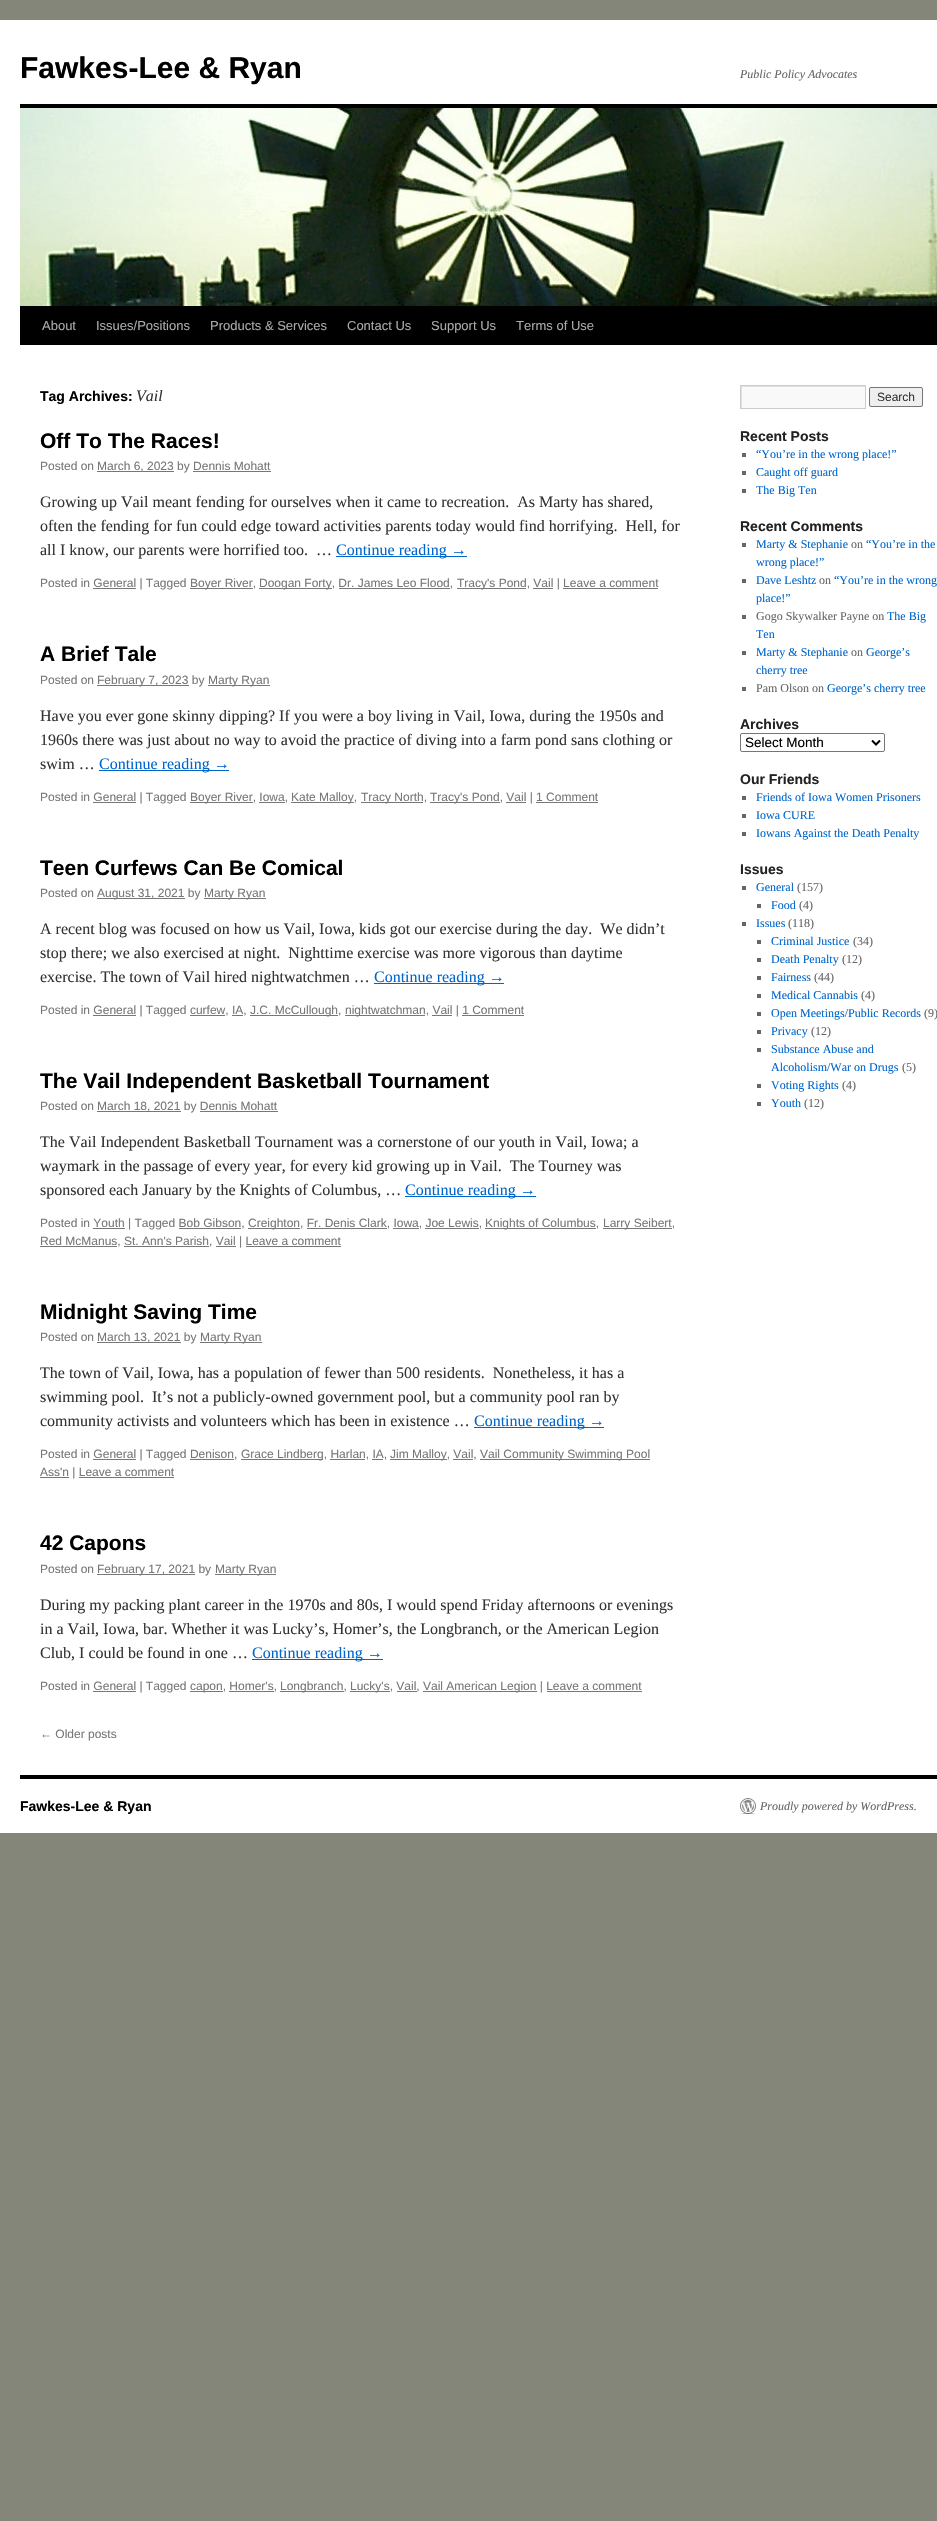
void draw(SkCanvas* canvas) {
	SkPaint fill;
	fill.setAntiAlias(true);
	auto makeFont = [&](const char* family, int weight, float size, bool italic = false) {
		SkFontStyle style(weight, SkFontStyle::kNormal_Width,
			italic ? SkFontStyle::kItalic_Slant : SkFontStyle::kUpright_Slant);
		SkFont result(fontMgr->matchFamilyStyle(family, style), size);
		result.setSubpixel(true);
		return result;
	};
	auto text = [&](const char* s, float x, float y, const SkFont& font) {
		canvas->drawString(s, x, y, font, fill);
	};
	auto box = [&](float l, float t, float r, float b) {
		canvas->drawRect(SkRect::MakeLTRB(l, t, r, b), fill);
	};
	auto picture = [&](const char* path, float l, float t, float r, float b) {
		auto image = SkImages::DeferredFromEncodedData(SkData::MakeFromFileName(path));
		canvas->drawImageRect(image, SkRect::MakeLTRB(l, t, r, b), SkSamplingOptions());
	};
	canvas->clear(0xFF838679);
	fill.setColor(0xFFFFFFFF);
	box(0, 20, 937, 1833);
	fill.setColor(0xFF000000);
	box(20, 104, 937, 108);
	box(20, 306, 937, 345);
	picture("image0.png", 20, 108, 937, 306);
	fill.setColor(0xFF777777);
	box(97, 471, 174, 472);
	box(193, 471, 271, 472);
	fill.setColor(0xFF0066CC);
	box(336, 556, 467, 557);
	fill.setColor(0xFF777777);
	box(93, 588, 136, 589);
	box(190, 588, 253, 589);
	box(259, 588, 332, 589);
	box(339, 588, 450, 589);
	box(457, 588, 526, 589);
	box(533, 588, 553, 589);
	box(563, 588, 658, 589);
	box(97, 685, 189, 686);
	box(208, 685, 270, 686);
	fill.setColor(0xFF0066CC);
	box(99, 770, 229, 771);
	fill.setColor(0xFF777777);
	box(93, 802, 136, 803);
	box(190, 802, 253, 803);
	box(259, 802, 285, 803);
	box(291, 802, 354, 803);
	box(361, 802, 423, 803);
	box(430, 802, 500, 803);
	box(506, 802, 526, 803);
	box(536, 802, 598, 803);
	box(97, 898, 185, 899);
	box(204, 898, 266, 899);
	fill.setColor(0xFF0066CC);
	box(374, 983, 504, 984);
	fill.setColor(0xFF777777);
	box(93, 1015, 136, 1016);
	box(190, 1015, 225, 1016);
	box(232, 1015, 243, 1016);
	box(250, 1015, 338, 1016);
	box(345, 1015, 425, 1016);
	box(432, 1015, 452, 1016);
	box(462, 1015, 524, 1016);
	box(97, 1111, 181, 1112);
	box(200, 1111, 278, 1112);
	fill.setColor(0xFF0066CC);
	box(405, 1196, 536, 1197);
	fill.setColor(0xFF777777);
	box(93, 1228, 125, 1229);
	box(179, 1228, 241, 1229);
	box(248, 1228, 300, 1229);
	box(307, 1228, 387, 1229);
	box(393, 1228, 419, 1229);
	box(425, 1228, 479, 1229);
	box(485, 1228, 596, 1229);
	box(603, 1228, 672, 1229);
	box(40, 1246, 117, 1247);
	box(124, 1246, 209, 1247);
	box(216, 1246, 236, 1247);
	box(246, 1246, 341, 1247);
	box(97, 1342, 181, 1343);
	box(200, 1342, 262, 1343);
	fill.setColor(0xFF0066CC);
	box(474, 1427, 604, 1428);
	fill.setColor(0xFF777777);
	box(93, 1459, 136, 1460);
	box(190, 1459, 234, 1460);
	box(241, 1459, 323, 1460);
	box(330, 1459, 365, 1460);
	box(372, 1459, 383, 1460);
	box(390, 1459, 447, 1460);
	box(453, 1459, 473, 1460);
	box(480, 1459, 650, 1460);
	box(40, 1477, 69, 1478);
	box(79, 1477, 174, 1478);
	box(97, 1574, 195, 1575);
	box(215, 1574, 276, 1575);
	fill.setColor(0xFF0066CC);
	box(252, 1659, 383, 1660);
	fill.setColor(0xFF777777);
	box(93, 1691, 136, 1692);
	box(190, 1691, 223, 1692);
	box(229, 1691, 274, 1692);
	box(280, 1691, 344, 1692);
	box(350, 1691, 390, 1692);
	box(397, 1691, 417, 1692);
	box(423, 1691, 537, 1692);
	box(547, 1691, 642, 1692);
	fill.setColor(0xFFF9F9F9);
	box(742, 387, 865, 408);
	canvas->save();
	canvas->clipRect(SkRect::MakeLTRB(741, 386, 865, 408));
	fill.setColor(0xFFE0E0E0);
	canvas->drawPath(SkPathBuilder(SkPathFillType::kEvenOdd).moveTo(642, 287).lineTo(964, 287).lineTo(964, 507).lineTo(642, 507).close().moveTo(742, 387).lineTo(866, 387).lineTo(866, 409).lineTo(742, 409).close().detach(), fill);
	canvas->restore();
	fill.setStyle(SkPaint::kStroke_Style);
	fill.setStrokeWidth(1);
	fill.setColor(0xFFCCCCCC);
	canvas->drawRect(SkRect::MakeLTRB(740.5f, 385.5f, 865.5f, 408.5f), fill);
	fill.setStyle(SkPaint::kFill_Style);
	fill.setColor(0xFFEFEFEF);
	canvas->drawRoundRect(SkRect::MakeLTRB(869.5f, 387.5f, 922.5f, 406.5f), 1.5f, 1.5f, fill);
	fill.setStyle(SkPaint::kStroke_Style);
	fill.setColor(0xFF767676);
	canvas->drawRoundRect(SkRect::MakeLTRB(869.5f, 387.5f, 922.5f, 406.5f), 1.5f, 1.5f, fill);
	fill.setStyle(SkPaint::kFill_Style);
	fill.setColor(0xFF666666);
	box(742, 453, 746, 457);
	box(742, 471, 746, 475);
	box(742, 489, 746, 493);
	box(742, 543, 746, 547);
	box(742, 579, 746, 583);
	box(742, 615, 746, 619);
	box(742, 651, 746, 655);
	box(742, 687, 746, 691);
	fill.setStyle(SkPaint::kStroke_Style);
	fill.setColor(0xFF767676);
	canvas->drawRoundRect(SkRect::MakeLTRB(740.5f, 733.5f, 884.5f, 751.5f), 1.5f, 1.5f, fill);
	fill.setStrokeWidth(2);
	fill.setColor(0xFF000000);
	canvas->drawPath(SkPathBuilder().moveTo(872, 740.5f).lineTo(876, 744.5f).lineTo(880, 740.5f).detach(), fill);
	fill.setStyle(SkPaint::kFill_Style);
	fill.setColor(0xFF666666);
	box(742, 796, 746, 800);
	box(742, 814, 746, 818);
	box(742, 832, 746, 836);
	box(742, 886, 746, 890);
	box(757, 904, 761, 908);
	box(742, 922, 746, 926);
	box(757, 940, 761, 944);
	box(757, 958, 761, 962);
	box(757, 976, 761, 980);
	box(757, 994, 761, 998);
	box(757, 1012, 761, 1016);
	box(757, 1030, 761, 1034);
	box(757, 1048, 761, 1052);
	box(757, 1084, 761, 1088);
	box(757, 1102, 761, 1106);
	fill.setColor(0xFF000000);
	box(20, 1775, 937, 1779);
	picture("image1.png", 740, 1798, 756, 1814);
	auto font1 = makeFont("Liberation Sans", 700, 30);
	text("Fawkes-Lee & Ryan", 20, 78, font1);
	auto font2 = makeFont("Liberation Serif", 400, 12, true);
	fill.setColor(0xFF666666);
	text("Public Policy Advocates", 740, 78, font2);
	auto font3 = makeFont("Liberation Sans", 400, 13);
	fill.setColor(0xFFAAAAAA);
	text("About", 42, 330, font3);
	text("Issues/Positions", 96, 330, font3);
	text("Products & Services", 210, 330, font3);
	text("Contact Us", 347, 330, font3);
	text("Support Us", 431, 330, font3);
	text("Terms of Use", 516, 330, font3);
	auto font4 = makeFont("Liberation Sans", 700, 14);
	fill.setColor(0xFF000000);
	text("Tag Archives:", 40, 401, font4);
	auto font5 = makeFont("Liberation Serif", 400, 16, true);
	fill.setColor(0xFF333333);
	text("Vail", 136, 401, font5);
	auto font6 = makeFont("Liberation Sans", 700, 21);
	fill.setColor(0xFF000000);
	text("Off To The Races!", 40, 448, font6);
	auto font7 = makeFont("Liberation Sans", 400, 12);
	fill.setColor(0xFF777777);
	text("Posted on", 40, 470, font7);
	text("March 6, 2023 by Dennis Mohatt", 97, 470, font7);
	auto font8 = makeFont("Liberation Serif", 400, 16);
	fill.setColor(0xFF333333);
	text("Growing up Vail meant fending for ourselves when it came to recreation.  As Marty has shared,", 40, 507, font8);
	text("often the fending for fun could edge toward activities parents today would find horrifying.  Hell, for", 40, 531, font8);
	text("all I know, our parents were horrified too.  …", 40, 555, font8);
	fill.setColor(0xFF0066CC);
	text("Continue reading →", 336, 555, font8);
	fill.setColor(0xFF777777);
	text("Posted in General | Tagged", 40, 587, font7);
	text("Boyer River,", 190, 587, font7);
	text("Doogan Forty, Dr. James Leo Flood,", 259, 587, font7);
	text("Tracy's Pond, Vail | Leave a comment", 457, 587, font7);
	fill.setColor(0xFF000000);
	text("A Brief Tale", 40, 661, font6);
	fill.setColor(0xFF777777);
	text("Posted on", 40, 684, font7);
	text("February 7, 2023 by", 97, 684, font7);
	text("Marty Ryan", 208, 684, font7);
	fill.setColor(0xFF333333);
	text("Have you ever gone skinny dipping? If you were a boy living in Vail, Iowa, during the 1950s and", 40, 721, font8);
	text("1960s there was just about no way to avoid the practice of diving into a farm pond sans clothing or", 40, 745, font8);
	text("swim …", 40, 769, font8);
	fill.setColor(0xFF0066CC);
	text("Continue reading →", 99, 769, font8);
	fill.setColor(0xFF777777);
	text("Posted in General | Tagged", 40, 801, font7);
	text("Boyer River, Iowa,", 190, 801, font7);
	text("Kate Malloy,", 291, 801, font7);
	text("Tracy North,", 361, 801, font7);
	text("Tracy's Pond, Vail | 1 Comment", 430, 801, font7);
	fill.setColor(0xFF000000);
	text("Teen Curfews Can Be Comical", 40, 875, font6);
	fill.setColor(0xFF777777);
	text("Posted on", 40, 897, font7);
	text("August 31, 2021 by", 97, 897, font7);
	text("Marty Ryan", 204, 897, font7);
	fill.setColor(0xFF333333);
	text("A recent blog was focused on how us Vail, Iowa, kids got our exercise during the day.  We didn’t", 40, 934, font8);
	text("stop there; we also exercised at night.  Nighttime exercise was more vigorous than daytime", 40, 958, font8);
	text("exercise. The town of Vail hired nightwatchmen …", 40, 982, font8);
	fill.setColor(0xFF0066CC);
	text("Continue reading →", 374, 982, font8);
	fill.setColor(0xFF777777);
	text("Posted in General | Tagged curfew, IA,", 40, 1014, font7);
	text("J.C. McCullough,", 250, 1014, font7);
	text("nightwatchman, Vail | 1 Comment", 345, 1014, font7);
	fill.setColor(0xFF000000);
	text("The Vail Independent Basketball Tournament", 40, 1088, font6);
	fill.setColor(0xFF777777);
	text("Posted on", 40, 1110, font7);
	text("March 18, 2021 by Dennis Mohatt", 97, 1110, font7);
	fill.setColor(0xFF333333);
	text("The Vail Independent Basketball Tournament was a cornerstone of our youth in Vail, Iowa; a", 40, 1147, font8);
	text("waymark in the passage of every year, for every kid growing up in Vail.  The Tourney was", 40, 1171, font8);
	text("sponsored each January by the Knights of Columbus, …", 40, 1195, font8);
	fill.setColor(0xFF0066CC);
	text("Continue reading →", 405, 1195, font8);
	fill.setColor(0xFF777777);
	text("Posted in Youth | Tagged Bob Gibson,", 40, 1227, font7);
	text("Creighton, Fr. Denis Clark, Iowa, Joe Lewis,", 248, 1227, font7);
	text("Knights of Columbus,", 485, 1227, font7);
	text("Larry Seibert,", 603, 1227, font7);
	text("Red McManus, St. Ann's Parish, Vail | Leave a comment", 40, 1245, font7);
	fill.setColor(0xFF000000);
	text("Midnight Saving Time", 40, 1319, font6);
	fill.setColor(0xFF777777);
	text("Posted on", 40, 1341, font7);
	text("March 13, 2021 by", 97, 1341, font7);
	text("Marty Ryan", 200, 1341, font7);
	fill.setColor(0xFF333333);
	text("The town of Vail, Iowa, has a population of fewer than 500 residents.  Nonetheless, it has a", 40, 1378, font8);
	text("swimming pool.  It’s not a publicly-owned government pool, but a community pool ran by", 40, 1402, font8);
	text("community activists and volunteers which has been in existence …", 40, 1426, font8);
	fill.setColor(0xFF0066CC);
	text("Continue reading →", 474, 1426, font8);
	fill.setColor(0xFF777777);
	text("Posted in General | Tagged Denison,", 40, 1458, font7);
	text("Grace Lindberg, Harlan, IA,", 241, 1458, font7);
	text("Jim Malloy, Vail,", 390, 1458, font7);
	text("Vail Community Swimming Pool", 480, 1458, font7);
	text("Ass'n | Leave a comment", 40, 1476, font7);
	fill.setColor(0xFF000000);
	text("42 Capons", 40, 1550, font6);
	fill.setColor(0xFF777777);
	text("Posted on", 40, 1573, font7);
	text("February 17, 2021 by", 97, 1573, font7);
	text("Marty Ryan", 215, 1573, font7);
	fill.setColor(0xFF333333);
	text("During my packing plant career in the 1970s and 80s, I would spend Friday afternoons or evenings", 40, 1610, font8);
	text("in a Vail, Iowa, bar. Whether it was Lucky’s, Homer’s, the Longbranch, or the American Legion", 40, 1634, font8);
	text("Club, I could be found in one …", 40, 1658, font8);
	fill.setColor(0xFF0066CC);
	text("Continue reading →", 252, 1658, font8);
	fill.setColor(0xFF777777);
	text("Posted in General | Tagged", 40, 1690, font7);
	text("capon, Homer's,", 190, 1690, font7);
	text("Longbranch,", 280, 1690, font7);
	text("Lucky's, Vail,", 350, 1690, font7);
	text("Vail American Legion | Leave a comment", 423, 1690, font7);
	text("← Older posts", 40, 1738, font7);
	fill.setColor(0xFF333333);
	text("Search", 877, 401, font7);
	fill.setColor(0xFF222222);
	text("Recent Posts", 740, 441, font4);
	auto font9 = makeFont("Liberation Serif", 400, 12);
	fill.setColor(0xFF0066CC);
	text("“You’re in the wrong place!”", 756, 458, font9);
	text("Caught off guard", 756, 476, font9);
	text("The Big Ten", 756, 494, font9);
	fill.setColor(0xFF222222);
	text("Recent Comments", 740, 531, font4);
	fill.setColor(0xFF0066CC);
	text("Marty & Stephanie", 756, 548, font9);
	fill.setColor(0xFF666666);
	text("on", 851, 548, font9);
	fill.setColor(0xFF0066CC);
	text("“You’re in the", 866, 548, font9);
	text("wrong place!”", 756, 566, font9);
	text("Dave Leshtz", 756, 584, font9);
	fill.setColor(0xFF666666);
	text("on", 819, 584, font9);
	fill.setColor(0xFF0066CC);
	text("“You’re in the wrong", 834, 584, font9);
	text("place!”", 756, 602, font9);
	fill.setColor(0xFF666666);
	text("Gogo Skywalker Payne on", 756, 620, font9);
	fill.setColor(0xFF0066CC);
	text("The Big", 887, 620, font9);
	text("Ten", 756, 638, font9);
	text("Marty & Stephanie", 756, 656, font9);
	fill.setColor(0xFF666666);
	text("on", 851, 656, font9);
	fill.setColor(0xFF0066CC);
	text("George’s", 866, 656, font9);
	text("cherry tree", 756, 674, font9);
	fill.setColor(0xFF666666);
	text("Pam Olson on", 756, 692, font9);
	fill.setColor(0xFF0066CC);
	text("George’s cherry tree", 827, 692, font9);
	fill.setColor(0xFF222222);
	text("Archives", 740, 729, font4);
	auto font10 = makeFont("Liberation Sans", 400, 13.5f);
	fill.setColor(0xFF000000);
	text("Select Month", 745, 747, font10);
	fill.setColor(0xFF222222);
	text("Our Friends", 740, 784, font4);
	fill.setColor(0xFF0066CC);
	text("Friends of Iowa Women Prisoners", 756, 801, font9);
	text("Iowa CURE", 756, 819, font9);
	text("Iowans Against the Death Penalty", 756, 837, font9);
	fill.setColor(0xFF222222);
	text("Issues", 740, 874, font4);
	fill.setColor(0xFF0066CC);
	text("General", 756, 891, font9);
	fill.setColor(0xFF666666);
	text("(157)", 797, 891, font9);
	fill.setColor(0xFF0066CC);
	text("Food", 771, 909, font9);
	fill.setColor(0xFF666666);
	text("(4)", 799, 909, font9);
	fill.setColor(0xFF0066CC);
	text("Issues", 756, 927, font9);
	fill.setColor(0xFF666666);
	text("(118)", 788, 927, font9);
	fill.setColor(0xFF0066CC);
	text("Criminal Justice", 771, 945, font9);
	fill.setColor(0xFF666666);
	text("(34)", 853, 945, font9);
	fill.setColor(0xFF0066CC);
	text("Death Penalty", 771, 963, font9);
	fill.setColor(0xFF666666);
	text("(12)", 842, 963, font9);
	fill.setColor(0xFF0066CC);
	text("Fairness", 771, 981, font9);
	fill.setColor(0xFF666666);
	text("(44)", 814, 981, font9);
	fill.setColor(0xFF0066CC);
	text("Medical Cannabis", 771, 999, font9);
	fill.setColor(0xFF666666);
	text("(4)", 861, 999, font9);
	fill.setColor(0xFF0066CC);
	text("Open Meetings/Public Records", 771, 1017, font9);
	fill.setColor(0xFF666666);
	text("(9)", 924, 1017, font9);
	fill.setColor(0xFF0066CC);
	text("Privacy", 771, 1035, font9);
	fill.setColor(0xFF666666);
	text("(12)", 811, 1035, font9);
	fill.setColor(0xFF0066CC);
	text("Substance Abuse and", 771, 1053, font9);
	text("Alcoholism/War on Drugs", 771, 1071, font9);
	fill.setColor(0xFF666666);
	text("(5)", 902, 1071, font9);
	fill.setColor(0xFF0066CC);
	text("Voting Rights", 771, 1089, font9);
	fill.setColor(0xFF666666);
	text("(4)", 842, 1089, font9);
	fill.setColor(0xFF0066CC);
	text("Youth", 771, 1107, font9);
	fill.setColor(0xFF666666);
	text("(12)", 804, 1107, font9);
	fill.setColor(0xFF000000);
	text("Fawkes-Lee & Ryan", 20, 1811, font4);
	fill.setColor(0xFF666666);
	text("Proudly powered by WordPress.", 760, 1810, font2);
}
